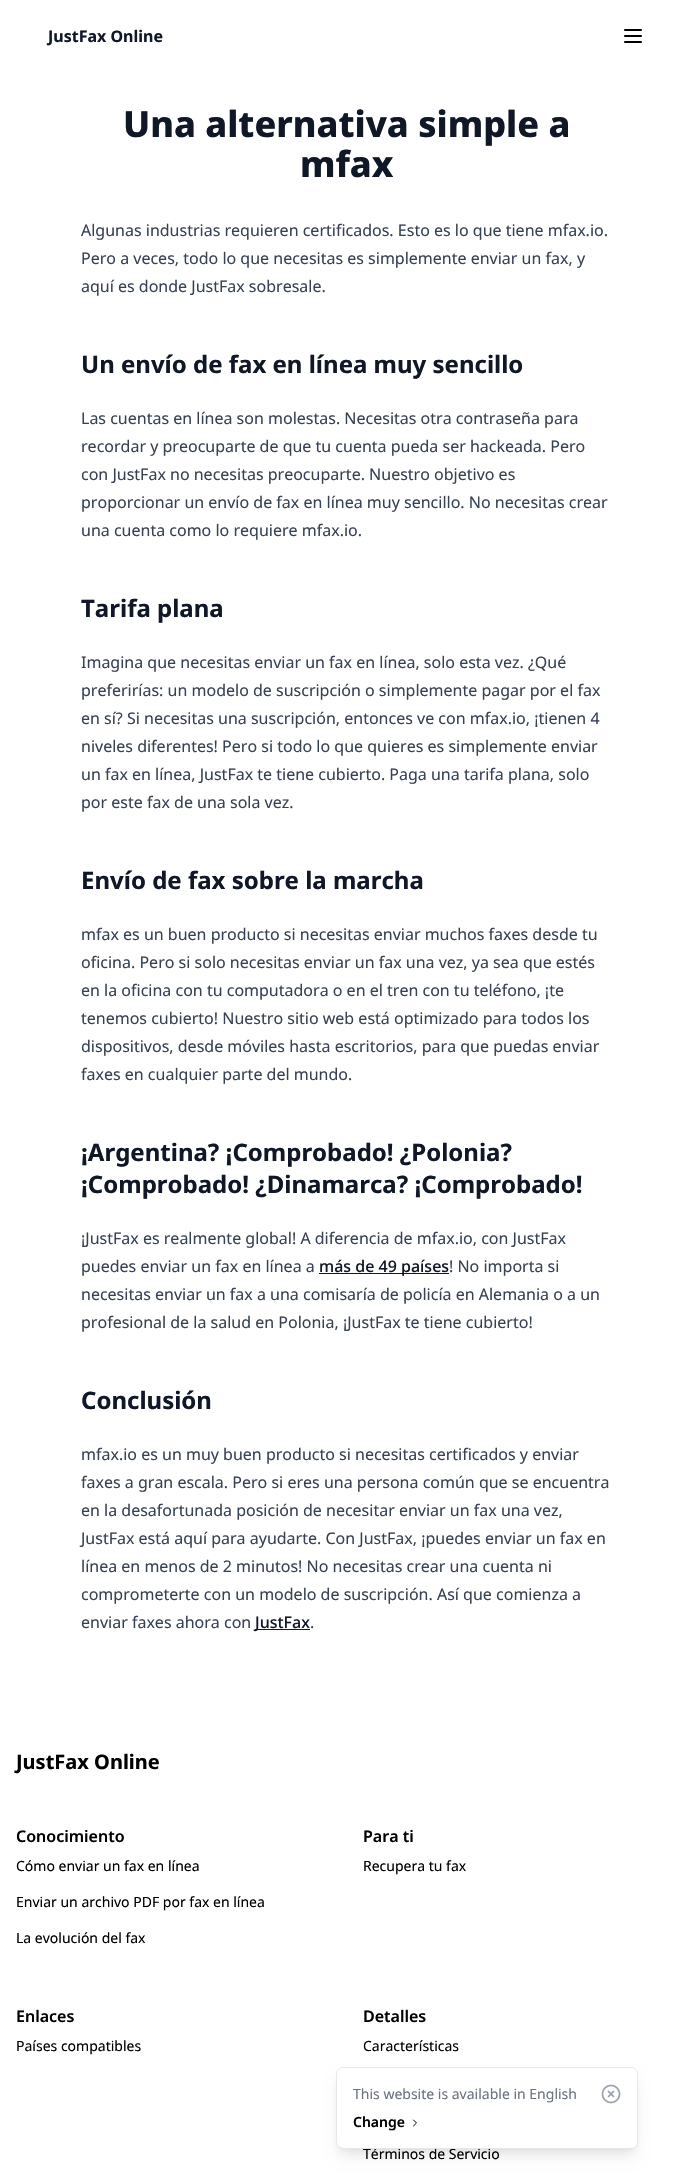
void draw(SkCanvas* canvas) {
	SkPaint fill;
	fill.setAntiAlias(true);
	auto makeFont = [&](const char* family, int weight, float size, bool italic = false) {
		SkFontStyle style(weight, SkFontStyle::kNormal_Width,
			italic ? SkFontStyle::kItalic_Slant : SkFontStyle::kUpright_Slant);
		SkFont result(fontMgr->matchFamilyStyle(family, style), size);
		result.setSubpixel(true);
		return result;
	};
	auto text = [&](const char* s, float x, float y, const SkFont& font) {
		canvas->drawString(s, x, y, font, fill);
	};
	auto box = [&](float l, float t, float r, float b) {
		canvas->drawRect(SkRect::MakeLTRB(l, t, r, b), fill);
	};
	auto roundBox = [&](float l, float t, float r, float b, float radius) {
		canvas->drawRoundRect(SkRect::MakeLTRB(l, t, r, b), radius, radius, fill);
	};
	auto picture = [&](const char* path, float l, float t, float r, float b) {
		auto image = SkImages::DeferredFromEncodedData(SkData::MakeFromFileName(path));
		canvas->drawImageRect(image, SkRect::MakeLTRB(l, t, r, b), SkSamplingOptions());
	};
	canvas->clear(0xFFFFFFFF);
	picture("image0.png", 624, 29, 642, 43);
	fill.setColor(0xFF101828);
	box(319, 1273, 449, 1274);
	box(255, 1629, 310, 1630);
	fill.setColor(0x1A000000);
	fill.setMaskFilter(SkMaskFilter::MakeBlur(kNormal_SkBlurStyle, 3));
	canvas->drawRoundRect(SkRect::MakeLTRB(341, 2076, 633, 2148), 2, 2, fill);
	fill.setMaskFilter(nullptr);
	fill.setMaskFilter(SkMaskFilter::MakeBlur(kNormal_SkBlurStyle, 7.5f));
	canvas->drawRoundRect(SkRect::MakeLTRB(340, 2081, 634, 2155), 3, 3, fill);
	fill.setMaskFilter(nullptr);
	auto font1 = makeFont("Noto Sans", 700, 16);
	fill.setColor(0xFF101828);
	text("JustFax Online", 48, 42, font1);
	auto font2 = makeFont("Noto Sans", 800, 36);
	text("Una alternativa simple a", 123, 137, font2);
	text("mfax", 300, 177, font2);
	auto font3 = makeFont("Noto Sans", 400, 16);
	fill.setColor(0xFF364153);
	text("Algunas industrias requieren certificados. Esto es lo que tiene mfax.io.", 81, 236, font3);
	text("Pero a veces, todo lo que necesitas es simplemente enviar un fax, y", 81, 264, font3);
	text("aquí es donde JustFax sobresale.", 81, 292, font3);
	auto font4 = makeFont("Noto Sans", 700, 24);
	fill.setColor(0xFF101828);
	text("Un envío de fax en línea muy sencillo", 81, 373, font4);
	fill.setColor(0xFF364153);
	text("Las cuentas en línea son molestas. Necesitas otra contraseña para", 81, 424, font3);
	text("recordar y preocuparte de que tu cuenta pueda ser hackeada. Pero", 81, 452, font3);
	text("con JustFax no necesitas preocuparte. Nuestro objetivo es", 81, 480, font3);
	text("proporcionar un envío de fax en línea muy sencillo. No necesitas crear", 81, 508, font3);
	text("una cuenta como lo requiere mfax.io.", 81, 536, font3);
	fill.setColor(0xFF101828);
	text("Tarifa plana", 81, 617, font4);
	fill.setColor(0xFF364153);
	text("Imagina que necesitas enviar un fax en línea, solo esta vez. ¿Qué", 81, 668, font3);
	text("preferirías: un modelo de suscripción o simplemente pagar por el fax", 81, 696, font3);
	text("en sí? Si necesitas una suscripción, entonces ve con mfax.io, ¡tienen 4", 81, 724, font3);
	text("niveles diferentes! Pero si todo lo que quieres es simplemente enviar", 81, 752, font3);
	text("un fax en línea, JustFax te tiene cubierto. Paga una tarifa plana, solo", 81, 780, font3);
	text("por este fax de una sola vez.", 81, 808, font3);
	fill.setColor(0xFF101828);
	text("Envío de fax sobre la marcha", 81, 889, font4);
	fill.setColor(0xFF364153);
	text("mfax es un buen producto si necesitas enviar muchos faxes desde tu", 81, 940, font3);
	text("oficina. Pero si solo necesitas enviar un fax una vez, ya sea que estés", 81, 968, font3);
	text("en la oficina con tu computadora o en el tren con tu teléfono, ¡te", 81, 996, font3);
	text("tenemos cubierto! Nuestro sitio web está optimizado para todos los", 81, 1024, font3);
	text("dispositivos, desde móviles hasta escritorios, para que puedas enviar", 81, 1052, font3);
	text("faxes en cualquier parte del mundo.", 81, 1080, font3);
	fill.setColor(0xFF101828);
	text("¡Argentina? ¡Comprobado! ¿Polonia?", 81, 1161, font4);
	text("¡Comprobado! ¿Dinamarca? ¡Comprobado!", 81, 1193, font4);
	fill.setColor(0xFF364153);
	text("¡JustFax es realmente global! A diferencia de mfax.io, con JustFax", 81, 1244, font3);
	text("puedes enviar un fax en línea a", 81, 1272, font3);
	auto font5 = makeFont("Noto Sans", 500, 16);
	fill.setColor(0xFF101828);
	text("más de 49 países", 319, 1272, font5);
	fill.setColor(0xFF364153);
	text("! No importa si", 449, 1272, font3);
	text("necesitas enviar un fax a una comisaría de policía en Alemania o a un", 81, 1300, font3);
	text("profesional de la salud en Polonia, ¡JustFax te tiene cubierto!", 81, 1328, font3);
	fill.setColor(0xFF101828);
	text("Conclusión", 81, 1409, font4);
	fill.setColor(0xFF364153);
	text("mfax.io es un muy buen producto si necesitas certificados y enviar", 81, 1460, font3);
	text("faxes a gran escala. Pero si eres una persona común que se encuentra", 81, 1488, font3);
	text("en la desafortunada posición de necesitar enviar un fax una vez,", 81, 1516, font3);
	text("JustFax está aquí para ayudarte. Con JustFax, ¡puedes enviar un fax en", 81, 1544, font3);
	text("línea en menos de 2 minutos! No necesitas crear una cuenta ni", 81, 1572, font3);
	text("comprometerte con un modelo de suscripción. Así que comienza a", 81, 1600, font3);
	text("enviar faxes ahora con", 81, 1628, font3);
	fill.setColor(0xFF101828);
	text("JustFax", 255, 1628, font5);
	fill.setColor(0xFF364153);
	text(".", 310, 1628, font3);
	auto font6 = makeFont("Noto Sans", 700, 20);
	fill.setColor(0xFF000000);
	text("JustFax Online", 16, 1769, font6);
	auto font7 = makeFont("Noto Sans", 600, 16);
	text("Conocimiento", 16, 1842, font7);
	auto font8 = makeFont("Noto Sans", 400, 14);
	text("Cómo enviar un fax en línea", 16, 1871, font8);
	text("Enviar un archivo PDF por fax en línea", 16, 1907, font8);
	text("La evolución del fax", 16, 1943, font8);
	text("Para ti", 363, 1842, font7);
	text("Recupera tu fax", 363, 1871, font8);
	text("Enlaces", 16, 2022, font7);
	text("Países compatibles", 16, 2051, font8);
	text("Detalles", 363, 2022, font7);
	text("Características", 363, 2051, font8);
	text("Términos de Servicio", 363, 2159, font8);
	fill.setStyle(SkPaint::kStroke_Style);
	fill.setStrokeWidth(1);
	fill.setColor(0xFFE5E7EB);
	canvas->drawRoundRect(SkRect::MakeLTRB(336.5f, 2067.5f, 637.5f, 2148.5f), 6.5f, 6.5f, fill);
	fill.setStyle(SkPaint::kFill_Style);
	fill.setColor(0xFFFFFFFF);
	roundBox(337, 2068, 637, 2148, 6);
	fill.setColor(0xFF6A7282);
	text("This website is available in English", 353, 2099, font8);
	auto font9 = makeFont("Noto Sans", 600, 14);
	fill.setColor(0xFF000000);
	text("Change", 353, 2127, font9);
	fill.setStyle(SkPaint::kStroke_Style);
	fill.setStrokeCap(SkPaint::kRound_Cap);
	fill.setStrokeJoin(SkPaint::kRound_Join);
	canvas->drawPath(SkPathBuilder().moveTo(413.5f, 2126).lineTo(416.5f, 2123).lineTo(413.5f, 2120).detach(), fill);
	picture("image1.png", 601, 2084, 621, 2104);
}
